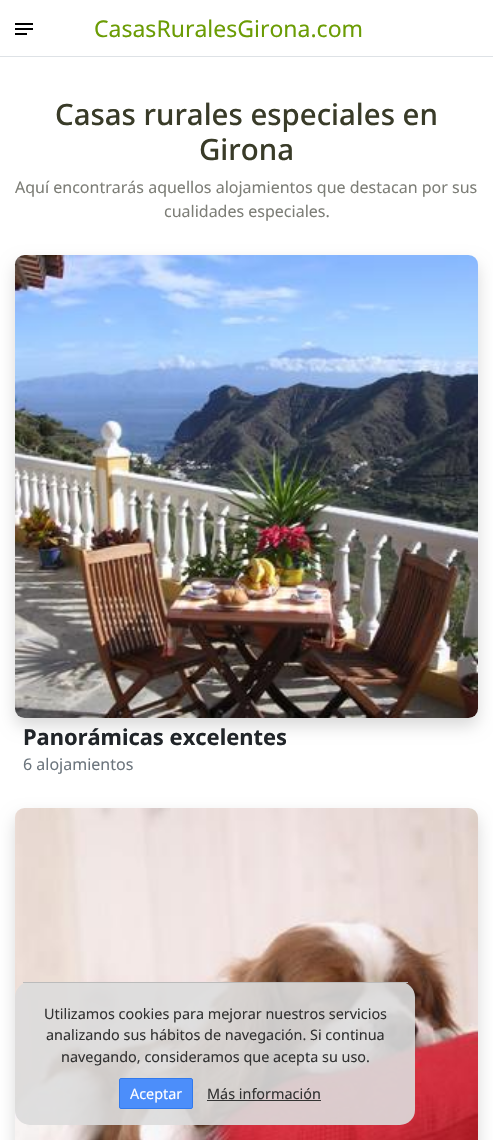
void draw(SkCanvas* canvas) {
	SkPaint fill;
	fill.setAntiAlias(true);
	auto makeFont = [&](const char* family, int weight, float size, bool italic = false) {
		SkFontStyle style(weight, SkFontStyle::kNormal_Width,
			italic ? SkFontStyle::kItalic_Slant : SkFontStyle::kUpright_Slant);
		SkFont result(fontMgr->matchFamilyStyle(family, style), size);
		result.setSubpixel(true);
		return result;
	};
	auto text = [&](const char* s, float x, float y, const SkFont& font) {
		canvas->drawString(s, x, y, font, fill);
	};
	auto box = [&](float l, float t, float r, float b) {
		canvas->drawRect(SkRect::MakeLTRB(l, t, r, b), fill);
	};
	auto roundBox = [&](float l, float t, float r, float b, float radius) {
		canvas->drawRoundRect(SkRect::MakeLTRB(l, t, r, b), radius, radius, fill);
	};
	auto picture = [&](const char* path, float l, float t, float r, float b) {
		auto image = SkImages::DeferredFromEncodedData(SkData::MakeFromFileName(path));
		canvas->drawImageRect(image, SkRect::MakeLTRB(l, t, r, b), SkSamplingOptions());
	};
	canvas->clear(0xFFFFFFFF);
	picture("image0.png", 15, 23, 33, 35);
	fill.setColor(0xFFDEE2E6);
	box(0, 56, 493, 57);
	fill.setColor(0x26000000);
	fill.setMaskFilter(SkMaskFilter::MakeBlur(kNormal_SkBlurStyle, 8));
	canvas->drawRoundRect(SkRect::MakeLTRB(15, 263, 478, 726), 10, 10, fill);
	fill.setMaskFilter(nullptr);
	picture("image1.png", 14, 255, 478, 718);
	fill.setMaskFilter(SkMaskFilter::MakeBlur(kNormal_SkBlurStyle, 8));
	canvas->drawRoundRect(SkRect::MakeLTRB(15, 816, 478, 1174), 10, 10, fill);
	fill.setMaskFilter(nullptr);
	picture("image2.png", 15, 808, 478, 1140);
	fill.setColor(0xE6DCDCDC);
	roundBox(15, 982, 415, 1125, 15);
	fill.setColor(0xFFBBBBBB);
	box(23, 982, 408, 983);
	fill.setColor(0xFF4C8EFA);
	canvas->drawRoundRect(SkRect::MakeLTRB(119.5f, 1078.5f, 192.5f, 1108.5f), 1.5f, 1.5f, fill);
	fill.setStyle(SkPaint::kStroke_Style);
	fill.setStrokeWidth(1);
	fill.setColor(0xFF3079ED);
	canvas->drawRoundRect(SkRect::MakeLTRB(119.5f, 1078.5f, 192.5f, 1108.5f), 1.5f, 1.5f, fill);
	fill.setStyle(SkPaint::kFill_Style);
	fill.setColor(0xFF333333);
	box(207, 1100, 321, 1101);
	auto font1 = makeFont("Noto Sans", 400, 23);
	fill.setColor(0xFF6B9C04);
	text("CasasRuralesGirona.com", 94, 37, font1);
	auto font2 = makeFont("Noto Sans", 500, 29.4f);
	fill.setColor(0xFF393B28);
	text("Casas rurales especiales en", 55, 125, font2);
	text("Girona", 199, 160, font2);
	auto font3 = makeFont("Noto Sans", 400, 16);
	fill.setColor(0xFF7D7E77);
	text("Aquí encontrarás aquellos alojamientos que destacan por sus", 15, 193, font3);
	text("cualidades especiales.", 164, 217, font3);
	auto font4 = makeFont("Noto Sans", 700, 21.9f);
	fill.setColor(0xFF212529);
	text("Panorámicas excelentes", 23, 745, font4);
	fill.setColor(0xFF6C757D);
	text("6 alojamientos", 23, 770, font3);
	auto font5 = makeFont("Noto Sans", 400, 14.4f);
	fill.setColor(0xFF333333);
	text("Utilizamos cookies para mejorar nuestros servicios", 44, 1019, font5);
	text("analizando sus hábitos de navegación. Si continua", 46, 1040, font5);
	text("navegando, consideramos que acepta su uso.", 61, 1062, font5);
	fill.setColor(0xFFFFFFFF);
	text("Aceptar", 130, 1099, font5);
	fill.setColor(0xFF333333);
	text("Más información", 207, 1099, font5);
}
